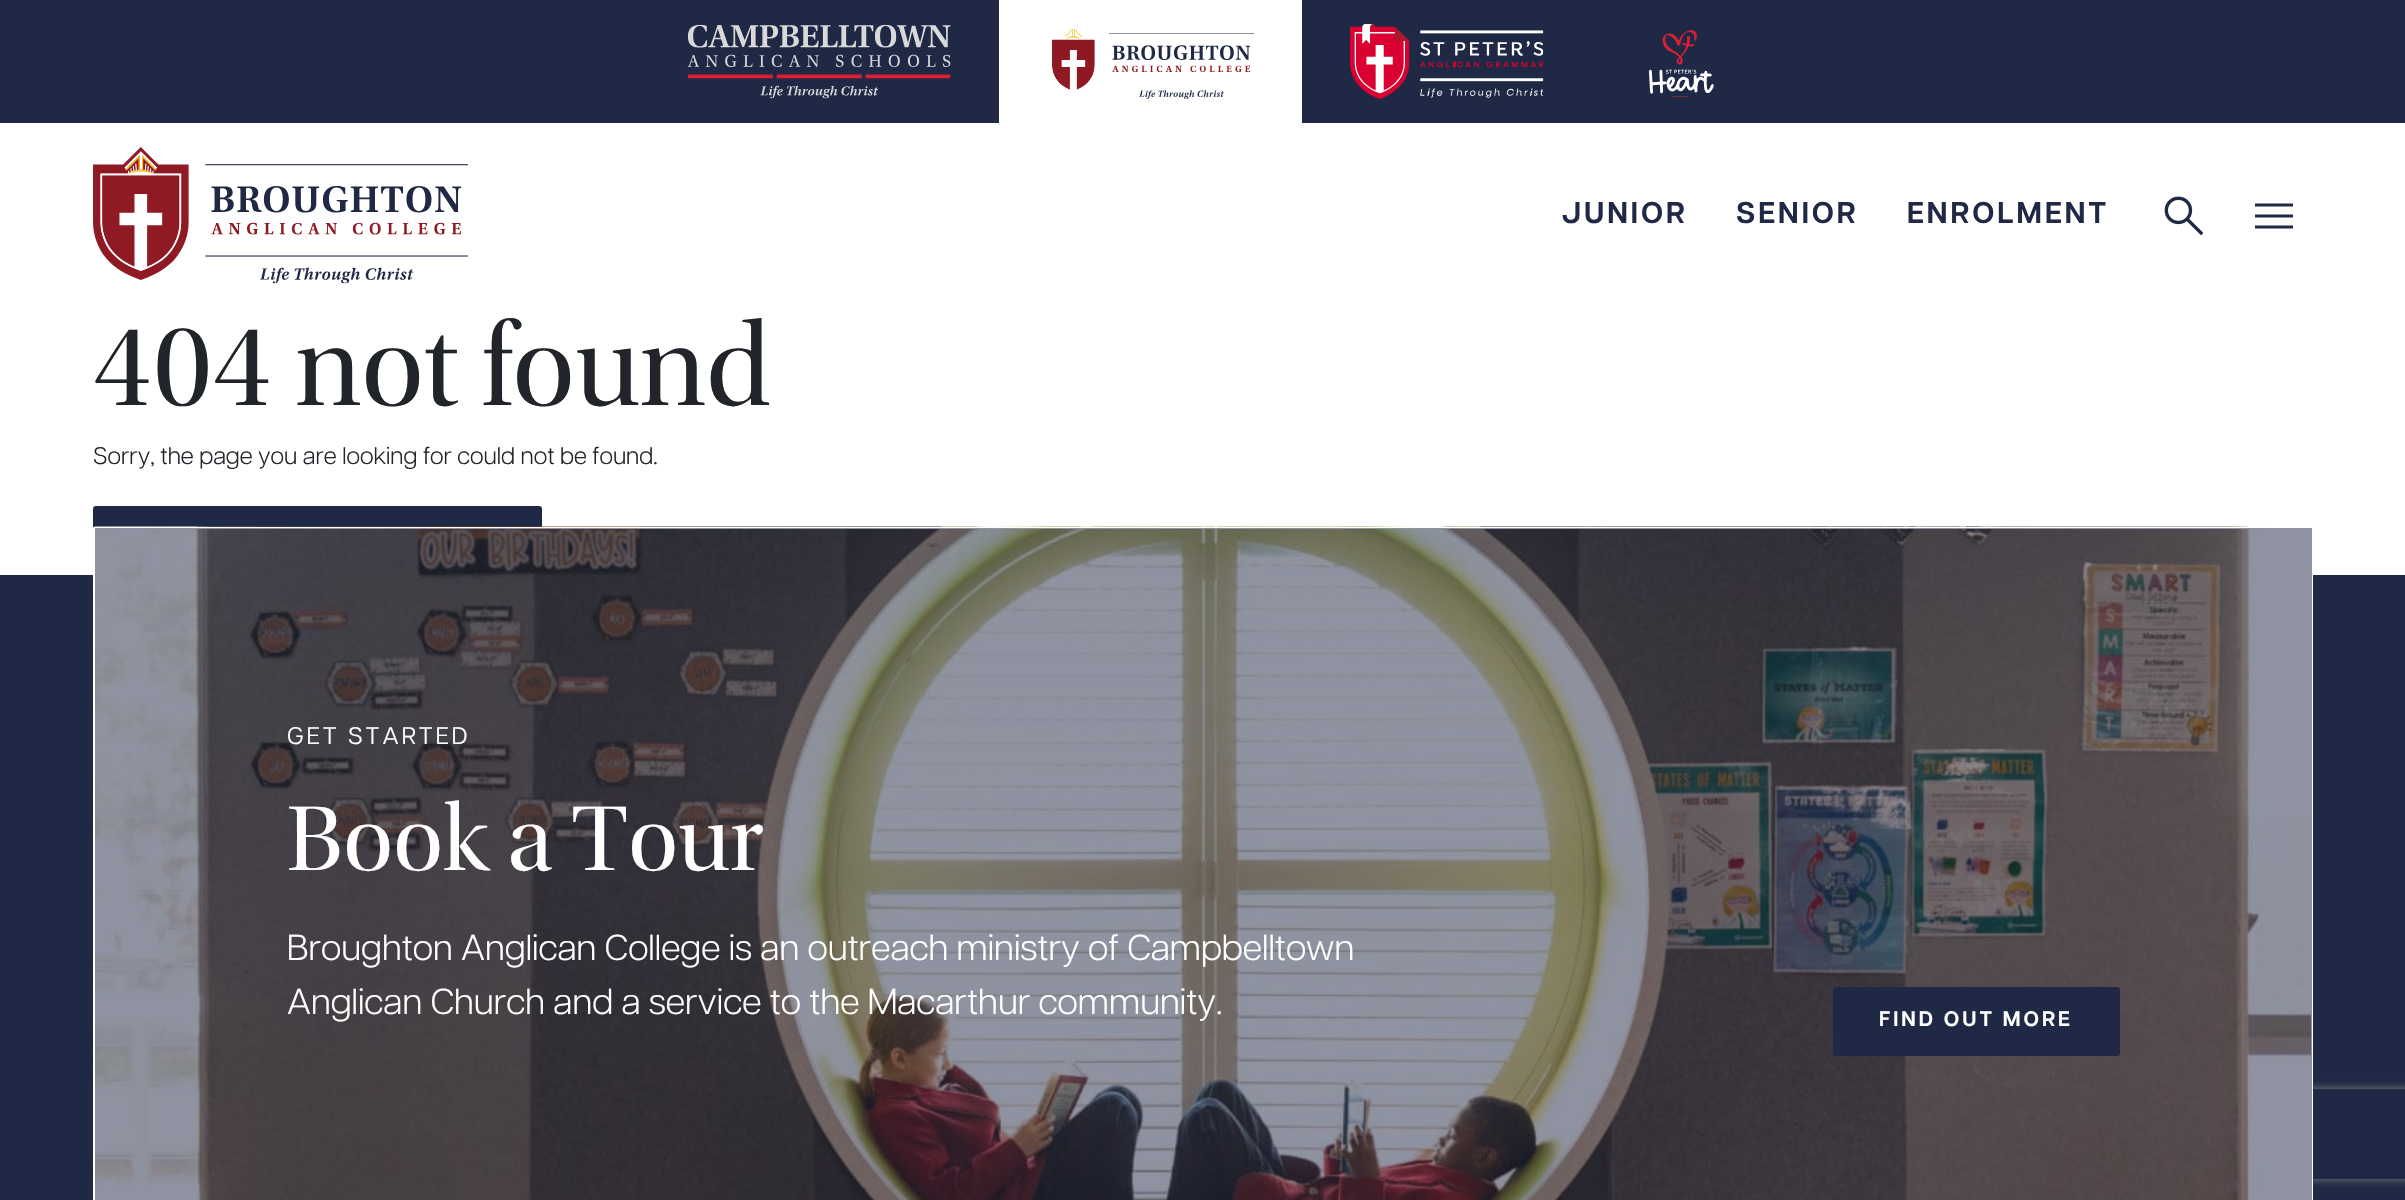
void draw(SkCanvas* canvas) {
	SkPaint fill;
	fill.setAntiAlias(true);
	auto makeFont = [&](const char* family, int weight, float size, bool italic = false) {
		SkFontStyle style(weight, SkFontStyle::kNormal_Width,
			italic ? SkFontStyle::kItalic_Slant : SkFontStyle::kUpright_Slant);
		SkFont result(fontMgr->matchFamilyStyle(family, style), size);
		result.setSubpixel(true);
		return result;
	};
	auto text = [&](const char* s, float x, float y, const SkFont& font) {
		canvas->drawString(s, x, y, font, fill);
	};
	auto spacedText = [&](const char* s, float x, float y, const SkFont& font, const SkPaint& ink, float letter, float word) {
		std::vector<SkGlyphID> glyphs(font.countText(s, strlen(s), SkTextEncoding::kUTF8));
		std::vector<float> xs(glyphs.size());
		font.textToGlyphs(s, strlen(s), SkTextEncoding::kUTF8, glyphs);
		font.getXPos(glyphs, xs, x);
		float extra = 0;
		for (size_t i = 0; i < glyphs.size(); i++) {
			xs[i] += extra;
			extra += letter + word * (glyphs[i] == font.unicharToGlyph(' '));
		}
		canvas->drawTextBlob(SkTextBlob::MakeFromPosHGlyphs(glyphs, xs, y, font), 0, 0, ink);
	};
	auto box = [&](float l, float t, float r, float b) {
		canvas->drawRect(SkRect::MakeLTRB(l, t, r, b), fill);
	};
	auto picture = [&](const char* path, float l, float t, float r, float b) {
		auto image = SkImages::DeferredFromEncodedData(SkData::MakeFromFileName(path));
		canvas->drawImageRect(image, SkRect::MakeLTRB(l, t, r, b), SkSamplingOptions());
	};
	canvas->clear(0xFFFFFFFF);
	fill.setColor(0xFF1F2844);
	box(0, 0, 2405, 123);
	picture("image0.png", 687, 24, 951, 99);
	fill.setColor(0xFFFFFFFF);
	box(999, 0, 1302, 123);
	picture("image1.png", 1052, 28, 1254, 99);
	picture("image2.png", 1350, 24, 1544, 99);
	picture("image3.png", 1649, 30, 1714, 97);
	picture("image4.png", 93, 147, 468, 284);
	picture("image5.png", 2164, 196, 2204, 236);
	fill.setColor(0xFF1F2844);
	canvas->drawPath(SkPathBuilder().moveTo(2255, 228.5f).lineTo(2255, 225.5f).lineTo(2293, 225.5f).lineTo(2293, 228.5f).close().moveTo(2255, 217.5f).lineTo(2255, 214.5f).lineTo(2293, 214.5f).lineTo(2293, 217.5f).close().moveTo(2255, 206.5f).lineTo(2255, 203.5f).lineTo(2293, 203.5f).lineTo(2293, 206.5f).close().detach(), fill);
	canvas->drawRoundRect(SkRect::MakeLTRB(94, 507, 541, 574), 2, 2, fill);
	fill.setStyle(SkPaint::kStroke_Style);
	fill.setStrokeWidth(2);
	canvas->drawRoundRect(SkRect::MakeLTRB(94, 507, 541, 574), 2, 2, fill);
	fill.setStyle(SkPaint::kFill_Style);
	box(0, 575, 2405, 1200);
	canvas->save();
	canvas->clipPath(SkPathBuilder(SkPathFillType::kEvenOdd).moveTo(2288, 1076).lineTo(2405, 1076).lineTo(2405, 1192).lineTo(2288, 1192).close().moveTo(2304, 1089).lineTo(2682, 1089).cubicTo(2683.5f, 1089, 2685, 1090.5f, 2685, 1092).lineTo(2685, 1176).cubicTo(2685, 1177.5f, 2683.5f, 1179, 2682, 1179).lineTo(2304, 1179).cubicTo(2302.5f, 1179, 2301, 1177.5f, 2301, 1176).lineTo(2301, 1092).cubicTo(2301, 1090.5f, 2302.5f, 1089, 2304, 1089).close().detach(), true);
	fill.setColor(0xFF808080);
	fill.setMaskFilter(SkMaskFilter::MakeBlur(kNormal_SkBlurStyle, 4));
	canvas->drawRoundRect(SkRect::MakeLTRB(2301, 1089, 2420, 1179), 3, 3, fill);
	fill.setMaskFilter(nullptr);
	canvas->restore();
	picture("image6.png", 94, 526, 2312, 1200);
	fill.setStyle(SkPaint::kStroke_Style);
	fill.setColor(0xFFFFFFFF);
	canvas->drawRect(SkRect::MakeLTRB(94, 528, 2312, 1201), fill);
	fill.setStyle(SkPaint::kFill_Style);
	fill.setColor(0x801F2844);
	box(95, 528, 2312, 1200);
	fill.setColor(0xFF1F2844);
	canvas->drawRoundRect(SkRect::MakeLTRB(1834, 988, 2119, 1055), 2, 2, fill);
	fill.setStyle(SkPaint::kStroke_Style);
	canvas->drawRoundRect(SkRect::MakeLTRB(1834, 988, 2119, 1055), 2, 2, fill);
	auto font1 = makeFont("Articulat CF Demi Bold", 600, 30);
	fill.setStyle(SkPaint::kFill_Style);
	spacedText("JUNIOR", 1561, 223, font1, fill, 3, 0);
	spacedText("SENIOR", 1736, 223, font1, fill, 3, 0);
	spacedText("ENROLMENT", 1907, 223, font1, fill, 3, 0);
	auto font2 = makeFont("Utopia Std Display", 400, 120);
	fill.setColor(0xFF212529);
	text("404 not found", 93, 405, font2);
	auto font3 = makeFont("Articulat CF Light", 300, 24);
	text("Sorry, the page you are looking for could not be found.", 93, 464, font3);
	auto font4 = makeFont("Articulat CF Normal", 400, 24);
	fill.setColor(0xFFFFFFFF);
	spacedText("GET STARTED", 287, 744, font4, fill, 3, 0);
	auto font5 = makeFont("Utopia Std Display", 400, 96);
	text("Book a Tour", 287, 870, font5);
	auto font6 = makeFont("Articulat CF Light", 300, 36);
	text("Broughton Anglican College is an outreach ministry of Campbelltown", 287, 960, font6);
	text("Anglican Church and a service to the Macarthur community.", 287, 1014, font6);
	auto font7 = makeFont("Articulat CF Demi Bold", 600, 21);
	spacedText("FIND OUT MORE", 1879, 1026, font7, fill, 3, 0);
}
